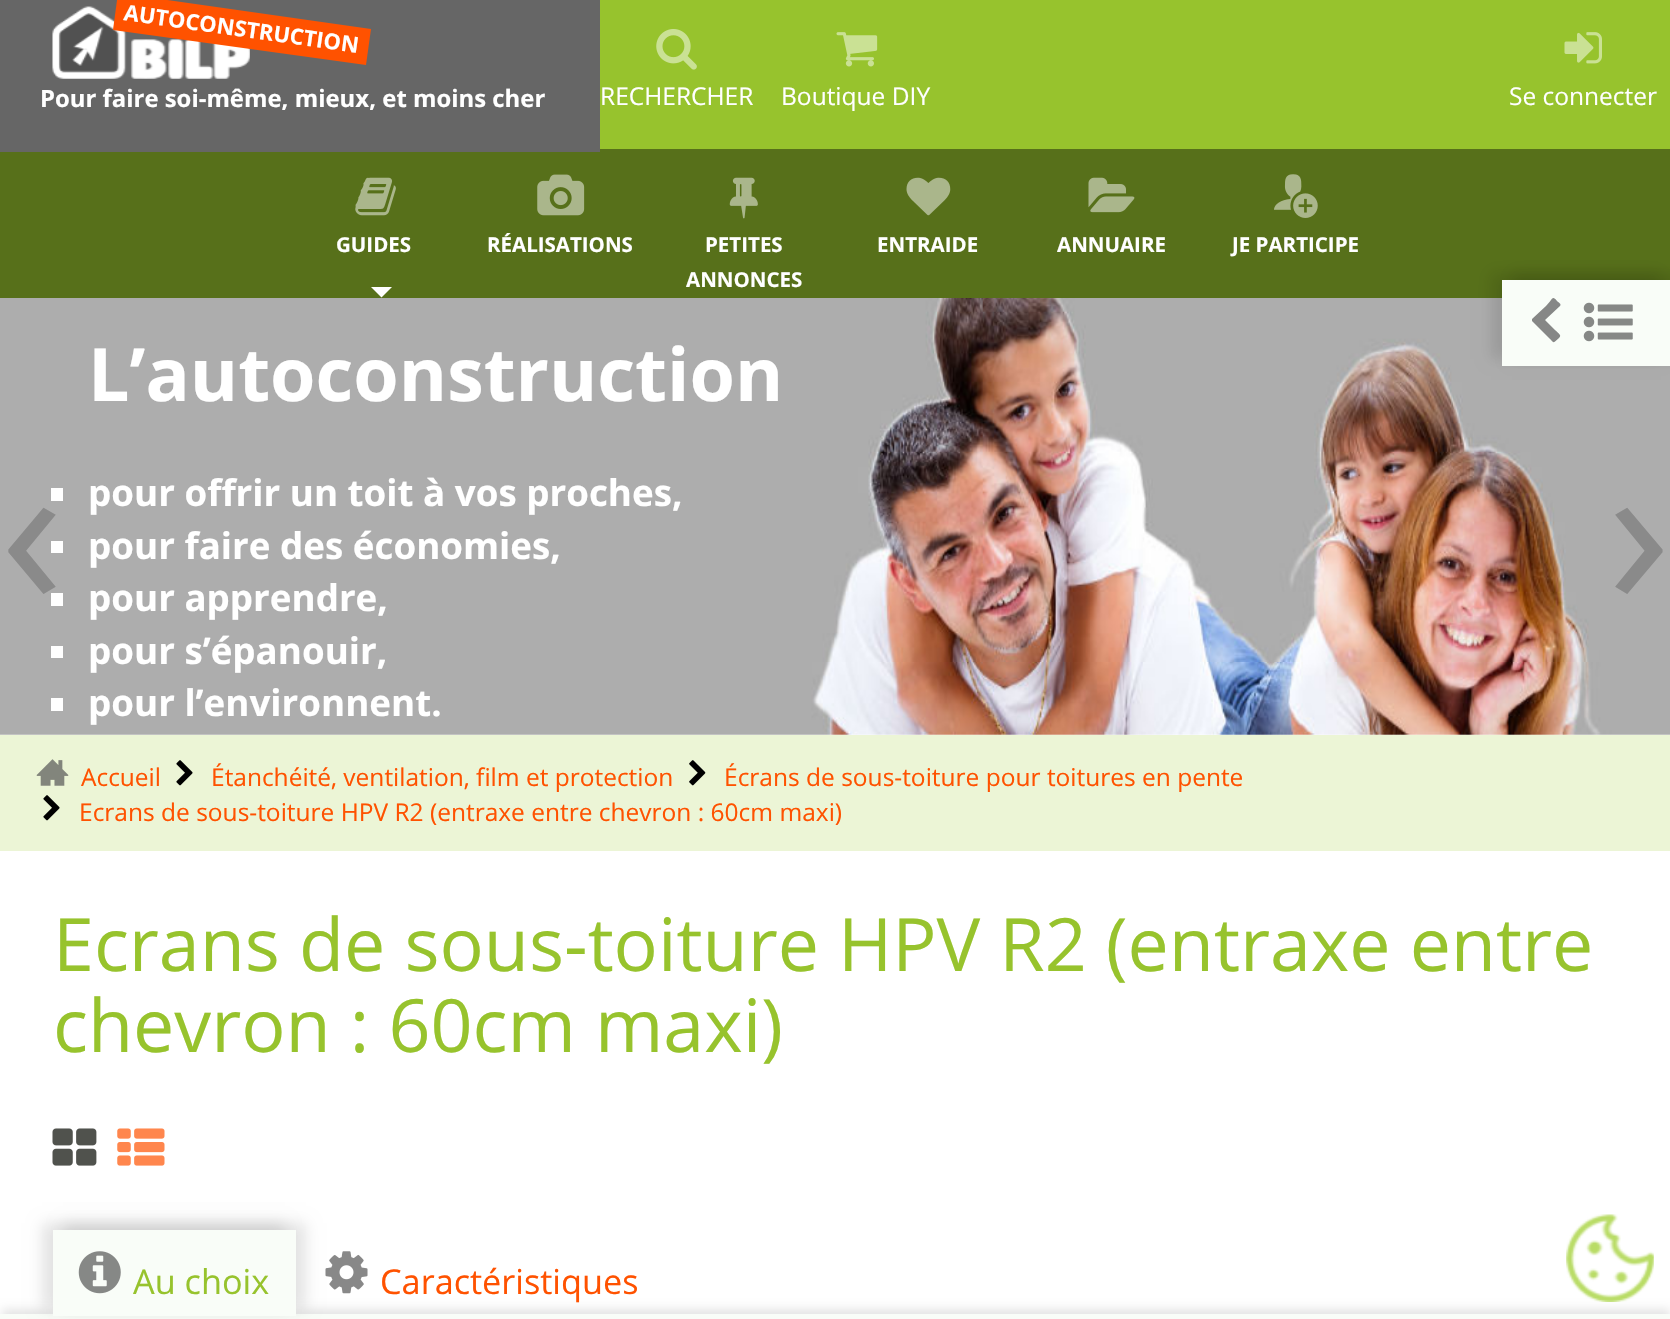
void draw(SkCanvas* canvas) {
	SkPaint fill;
	fill.setAntiAlias(true);
	auto makeFont = [&](const char* family, int weight, float size, bool italic = false) {
		SkFontStyle style(weight, SkFontStyle::kNormal_Width,
			italic ? SkFontStyle::kItalic_Slant : SkFontStyle::kUpright_Slant);
		SkFont result(fontMgr->matchFamilyStyle(family, style), size);
		result.setSubpixel(true);
		return result;
	};
	auto text = [&](const char* s, float x, float y, const SkFont& font) {
		canvas->drawString(s, x, y, font, fill);
	};
	auto box = [&](float l, float t, float r, float b) {
		canvas->drawRect(SkRect::MakeLTRB(l, t, r, b), fill);
	};
	auto picture = [&](const char* path, float l, float t, float r, float b) {
		auto image = SkImages::DeferredFromEncodedData(SkData::MakeFromFileName(path));
		canvas->drawImageRect(image, SkRect::MakeLTRB(l, t, r, b), SkSamplingOptions());
	};
	canvas->clear(0xFFFFFFFF);
	fill.setColor(0xFF97C32D);
	box(600, 0, 1670, 149);
	fill.setColor(0xFF57701A);
	box(0, 149, 1670, 298);
	fill.setColor(0xFF666666);
	box(0, 0, 600, 152);
	picture("image0.png", 52, 6, 250, 79);
	fill.setColor(0xFFFF5200);
	canvas->drawPath(SkPathBuilder().moveTo(118, -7).lineTo(371, 29).lineTo(366, 65).lineTo(113, 30).close().detach(), fill);
	picture("image1.png", 656, 29, 697, 70);
	picture("image2.png", 836, 32, 878, 67);
	picture("image3.png", 1564, 32, 1602, 64);
	picture("image4.png", 355, 177, 396, 216);
	fill.setColor(0xFFFFFFFF);
	canvas->drawPath(SkPathBuilder().moveTo(371, 287).lineTo(392, 287).lineTo(381.5f, 297.5f).close().detach(), fill);
	picture("image5.png", 537, 174, 585, 216);
	picture("image6.png", 729, 177, 758, 219);
	picture("image7.png", 906, 177, 951, 216);
	picture("image8.png", 1088, 177, 1135, 213);
	picture("image9.png", 1274, 174, 1318, 218);
	picture("image10.png", 0, 298, 1670, 735);
	box(51, 488, 63, 501);
	box(51, 541, 63, 553);
	box(51, 593, 63, 606);
	box(51, 646, 63, 658);
	box(51, 698, 63, 711);
	fill.setColor(0xFFECF5D6);
	box(0, 735, 1670, 851);
	picture("image11.png", 36, 759, 69, 786);
	picture("image12.png", 176, 760, 193, 786);
	picture("image13.png", 689, 760, 706, 786);
	picture("image12.png", 43, 795, 60, 821);
	fill.setColor(0x1A000000);
	fill.setMaskFilter(SkMaskFilter::MakeBlur(kNormal_SkBlurStyle, 7));
	canvas->drawRect(SkRect::MakeLTRB(1512, 273, 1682, 359), fill);
	fill.setMaskFilter(nullptr);
	fill.setMaskFilter(SkMaskFilter::MakeBlur(kNormal_SkBlurStyle, 7));
	canvas->drawRect(SkRect::MakeLTRB(1491, 273, 1661, 359), fill);
	fill.setMaskFilter(nullptr);
	fill.setColor(0xFFF9FDF8);
	box(1502, 280, 1670, 366);
	fill.setColor(0xFF868786);
	canvas->drawPath(SkPathBuilder().moveTo(1560, 306).lineTo(1545, 320).lineTo(1555, 330).cubicTo(1559, 334, 1562, 335, 1559, 338).cubicTo(1553, 343, 1555, 344, 1549, 338).lineTo(1532, 321).lineTo(1532, 319).lineTo(1546, 306).cubicTo(1553, 299, 1552, 295, 1557, 301).cubicTo(1558, 302, 1562, 304, 1560, 306).close().detach(), fill);
	picture("image14.png", 1583, 302, 1633, 342);
	picture("image15.png", 52, 1128, 97, 1166);
	picture("image16.png", 117, 1128, 165, 1166);
	fill.setColor(0x1A000000);
	fill.setMaskFilter(SkMaskFilter::MakeBlur(kNormal_SkBlurStyle, 5));
	canvas->drawRect(SkRect::MakeLTRB(2, 1309, 1670, 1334), fill);
	fill.setMaskFilter(nullptr);
	picture("image18.png", 325, 1251, 368, 1294);
	fill.setColor(0xFFF9FDF8);
	box(0, 1314, 1670, 1319);
	fill.setColor(0x1A000000);
	fill.setMaskFilter(SkMaskFilter::MakeBlur(kNormal_SkBlurStyle, 7));
	canvas->drawRect(SkRect::MakeLTRB(63, 1223, 306, 1309), fill);
	fill.setMaskFilter(nullptr);
	fill.setMaskFilter(SkMaskFilter::MakeBlur(kNormal_SkBlurStyle, 7));
	canvas->drawRect(SkRect::MakeLTRB(42, 1223, 285, 1309), fill);
	fill.setMaskFilter(nullptr);
	fill.setColor(0xFFF9FDF8);
	box(53, 1230, 296, 1316);
	picture("image17.png", 78, 1251, 121, 1294);
	picture("image19.png", 1566, 1214, 1654, 1302);
	auto font1 = makeFont("Open Sans", 700, 22);
	fill.setColor(0xFFFFFFFF);
	canvas->save();
	canvas->rotate(8, 123, 20);
	text("AUTOCONSTRUCTION", 123, 20, font1);
	canvas->restore();
	auto font2 = makeFont("Open Sans", 700, 23.9f);
	text("Pour faire soi-même, mieux, et moins cher", 40, 107, font2);
	auto font3 = makeFont("Open Sans", 400, 24.5f);
	text("RECHERCHER", 600, 105, font3);
	text("Boutique DIY", 781, 105, font3);
	text("Se connecter", 1509, 105, font3);
	auto font4 = makeFont("Open Sans", 700, 20.5f);
	text("GUIDES", 336, 252, font4);
	text("RÉALISATIONS", 487, 252, font4);
	text("PETITES", 705, 252, font4);
	text("ANNONCES", 686, 287, font4);
	text("ENTRAIDE", 877, 252, font4);
	text("ANNUAIRE", 1057, 252, font4);
	text("JE PARTICIPE", 1232, 252, font4);
	auto font5 = makeFont("Open Sans", 400, 210);
	fill.setColor(0xFF8A8A8A);
	text("‹", 0, 606, font5);
	auto font6 = makeFont("Open Sans", 700, 73.5f);
	fill.setColor(0xFFFFFFFF);
	text("L’autoconstruction", 88, 401, font6);
	auto font7 = makeFont("Open Sans", 700, 36.75f);
	text("pour offrir un toit à vos proches,", 88, 506, font7);
	text("pour faire des économies,", 88, 559, font7);
	text("pour apprendre,", 88, 611, font7);
	text("pour s’épanouir,", 88, 664, font7);
	text("pour l’environnent.", 88, 716, font7);
	fill.setColor(0xFF8A8A8A);
	text("›", 1607, 606, font5);
	fill.setColor(0xFFFF5200);
	text("Accueil", 81, 786, font3);
	text("Étanchéité, ventilation, film et protection", 211, 786, font3);
	text("Écrans de sous-toiture pour toitures en pente", 724, 786, font3);
	text("Ecrans de sous-toiture HPV R2 (entraxe entre chevron : 60cm maxi)", 79, 821, font3);
	auto font8 = makeFont("Open Sans", 400, 73.5f);
	fill.setColor(0xFF97C32D);
	text("Ecrans de sous-toiture HPV R2 (entraxe entre", 53, 971, font8);
	text("chevron : 60cm maxi)", 53, 1052, font8);
	auto font9 = makeFont("Open Sans", 400, 34.25f);
	text("Au choix", 133, 1294, font9);
	fill.setColor(0xFFFF5200);
	text("Caractéristiques", 380, 1294, font9);
}
